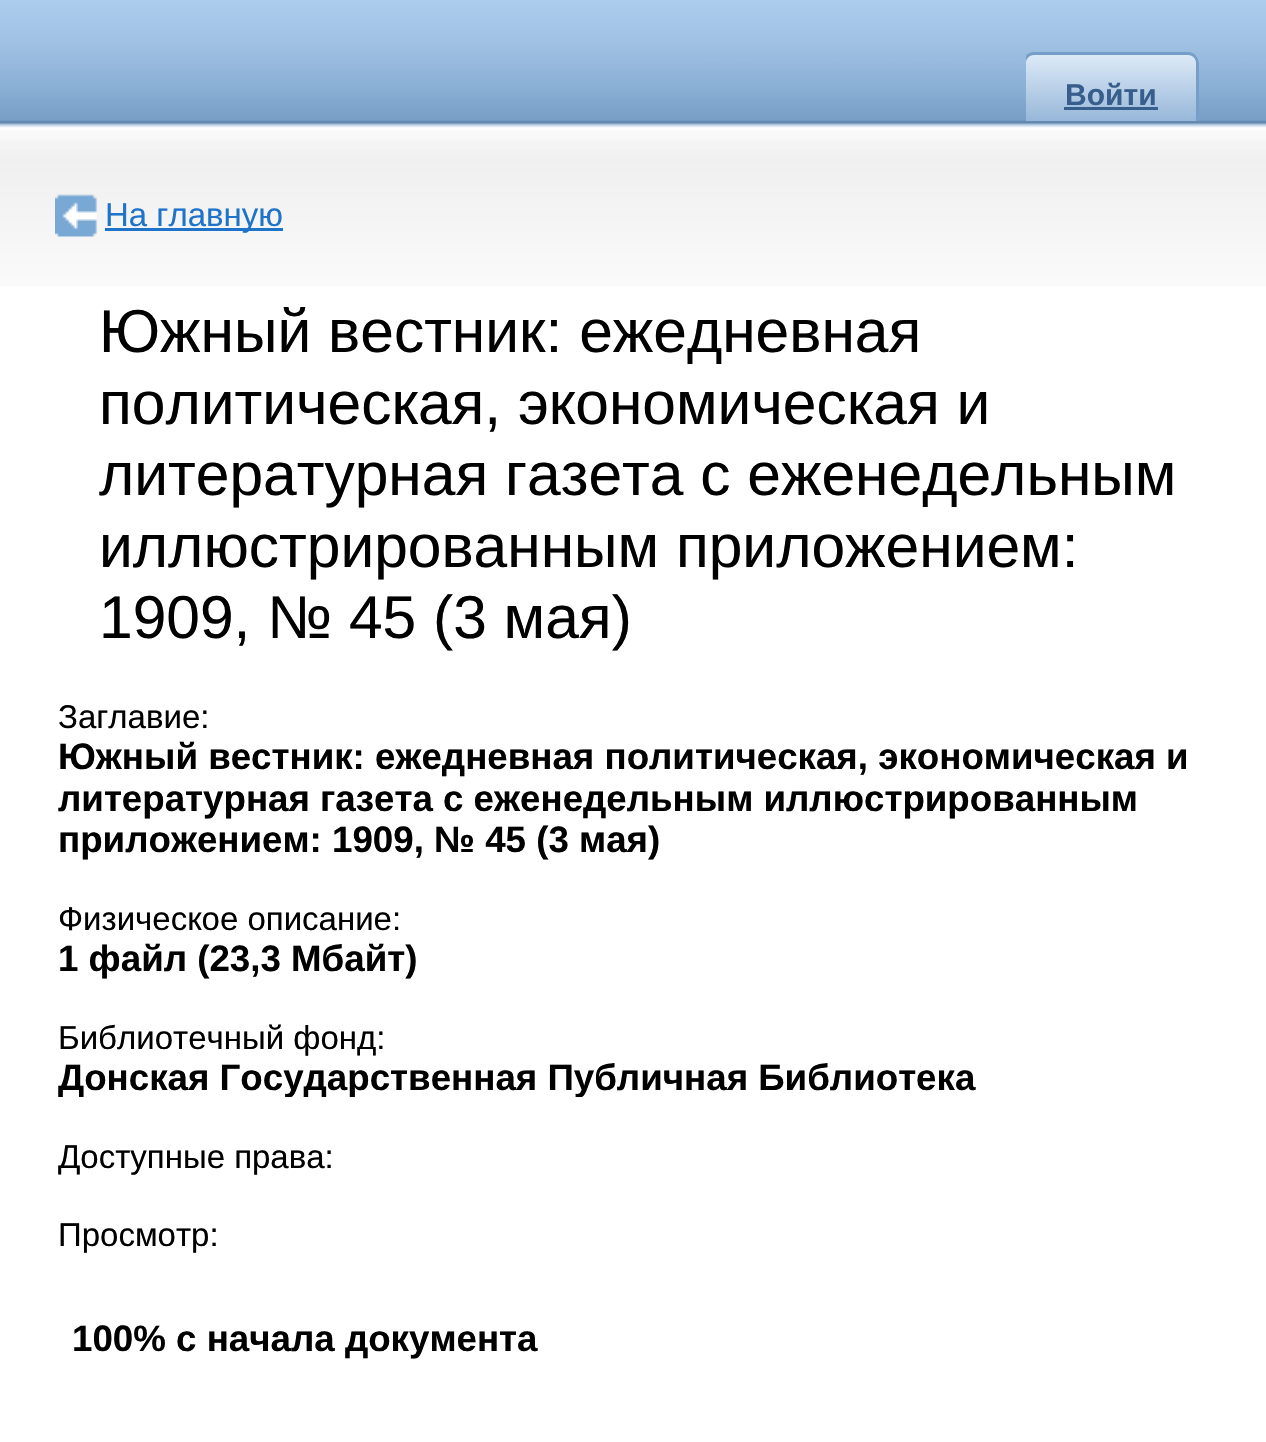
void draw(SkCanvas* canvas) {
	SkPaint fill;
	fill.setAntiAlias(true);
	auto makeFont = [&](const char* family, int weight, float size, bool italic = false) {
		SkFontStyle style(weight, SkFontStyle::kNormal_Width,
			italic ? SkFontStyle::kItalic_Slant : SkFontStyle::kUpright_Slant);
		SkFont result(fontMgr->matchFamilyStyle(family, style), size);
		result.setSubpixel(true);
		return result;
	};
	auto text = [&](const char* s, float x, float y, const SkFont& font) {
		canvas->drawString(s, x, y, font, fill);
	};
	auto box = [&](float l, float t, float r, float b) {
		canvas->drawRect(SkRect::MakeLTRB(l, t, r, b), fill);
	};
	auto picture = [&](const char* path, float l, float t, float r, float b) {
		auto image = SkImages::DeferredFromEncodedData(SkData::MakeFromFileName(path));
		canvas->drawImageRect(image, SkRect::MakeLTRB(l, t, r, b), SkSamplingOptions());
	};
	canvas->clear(0xFFFFFFFF);
	picture("image0.png", 0, 0, 1266, 286);
	canvas->save();
	canvas->clipPath(SkPathBuilder().moveTo(1034, 52).lineTo(1188, 52).cubicTo(1194, 52, 1199, 57, 1199, 63).lineTo(1199, 121).lineTo(1023, 121).lineTo(1023, 63).cubicTo(1023, 57, 1028, 52, 1034, 52).close().detach(), true);
	{
		const SkColor colors[] = {0xFFDDEAF7, 0xFF97B7D9};
		const float stops[] = {0, 1};
		const SkPoint ends[] = {{1026, 55}, {1026, 121}};
		fill.setShader(SkGradientShader::MakeLinear(ends, colors, stops, 2, SkTileMode::kClamp));
		fill.setAlpha(255);
	}
	box(1026, 55, 1199, 121);
	canvas->restore();
	canvas->save();
	canvas->clipRect(SkRect::MakeLTRB(1026, 52, 1199, 124));
	fill.setShader(nullptr);
	fill.setColor(0xFF759FC9);
	canvas->drawPath(SkPathBuilder(SkPathFillType::kEvenOdd).moveTo(1034, 52).lineTo(1188, 52).cubicTo(1194, 52, 1199, 57, 1199, 63).lineTo(1199, 121).lineTo(1023, 121).lineTo(1023, 63).cubicTo(1023, 57, 1028, 52, 1034, 52).close().moveTo(1034, 55).lineTo(1188, 55).cubicTo(1193, 55, 1196, 59, 1196, 63).lineTo(1196, 121).lineTo(1026, 121).lineTo(1026, 63).cubicTo(1026, 59, 1029, 55, 1034, 55).close().detach(), fill);
	canvas->restore();
	fill.setColor(0xFF375E8C);
	box(1064, 107, 1158, 110);
	picture("image1.png", 55, 194, 98, 237);
	fill.setColor(0xFF1F74CA);
	box(105, 228, 283, 231);
	auto font1 = makeFont("Liberation Sans", 700, 30);
	fill.setColor(0xFF375E8C);
	text("Войти", 1065, 105, font1);
	auto font2 = makeFont("Liberation Sans", 400, 33);
	fill.setColor(0xFF1F74CA);
	text("На главную", 105, 226, font2);
	auto font3 = makeFont("Liberation Sans", 400, 60.5f);
	fill.setColor(0xFF000000);
	text("Южный вестник: ежедневная", 99, 352, font3);
	text("политическая, экономическая и", 99, 424, font3);
	text("литературная газета с еженедельным", 99, 495, font3);
	text("иллюстрированным приложением:", 99, 567, font3);
	text("1909, № 45 (3 мая)", 99, 638, font3);
	text("Заглавие:", 58, 728, font2);
	auto font4 = makeFont("Liberation Sans", 700, 36.7f);
	text("Южный вестник: ежедневная политическая, экономическая и", 58, 769, font4);
	text("литературная газета с еженедельным иллюстрированным", 58, 811, font4);
	text("приложением: 1909, № 45 (3 мая)", 58, 852, font4);
	text("Физическое описание:", 58, 930, font2);
	text("1 файл (23,3 Мбайт)", 58, 971, font4);
	text("Библиотечный фонд:", 58, 1049, font2);
	canvas->save();
	canvas->clipRect(SkRect::MakeLTRB(58, 1056, 1210, 1097));
	text("Донская Государственная Публичная Библиотека", 58, 1090, font4);
	canvas->restore();
	text("Доступные права:", 58, 1168, font2);
	text("Просмотр:", 58, 1246, font2);
	text("100% с начала документа", 72, 1351, font4);
}
